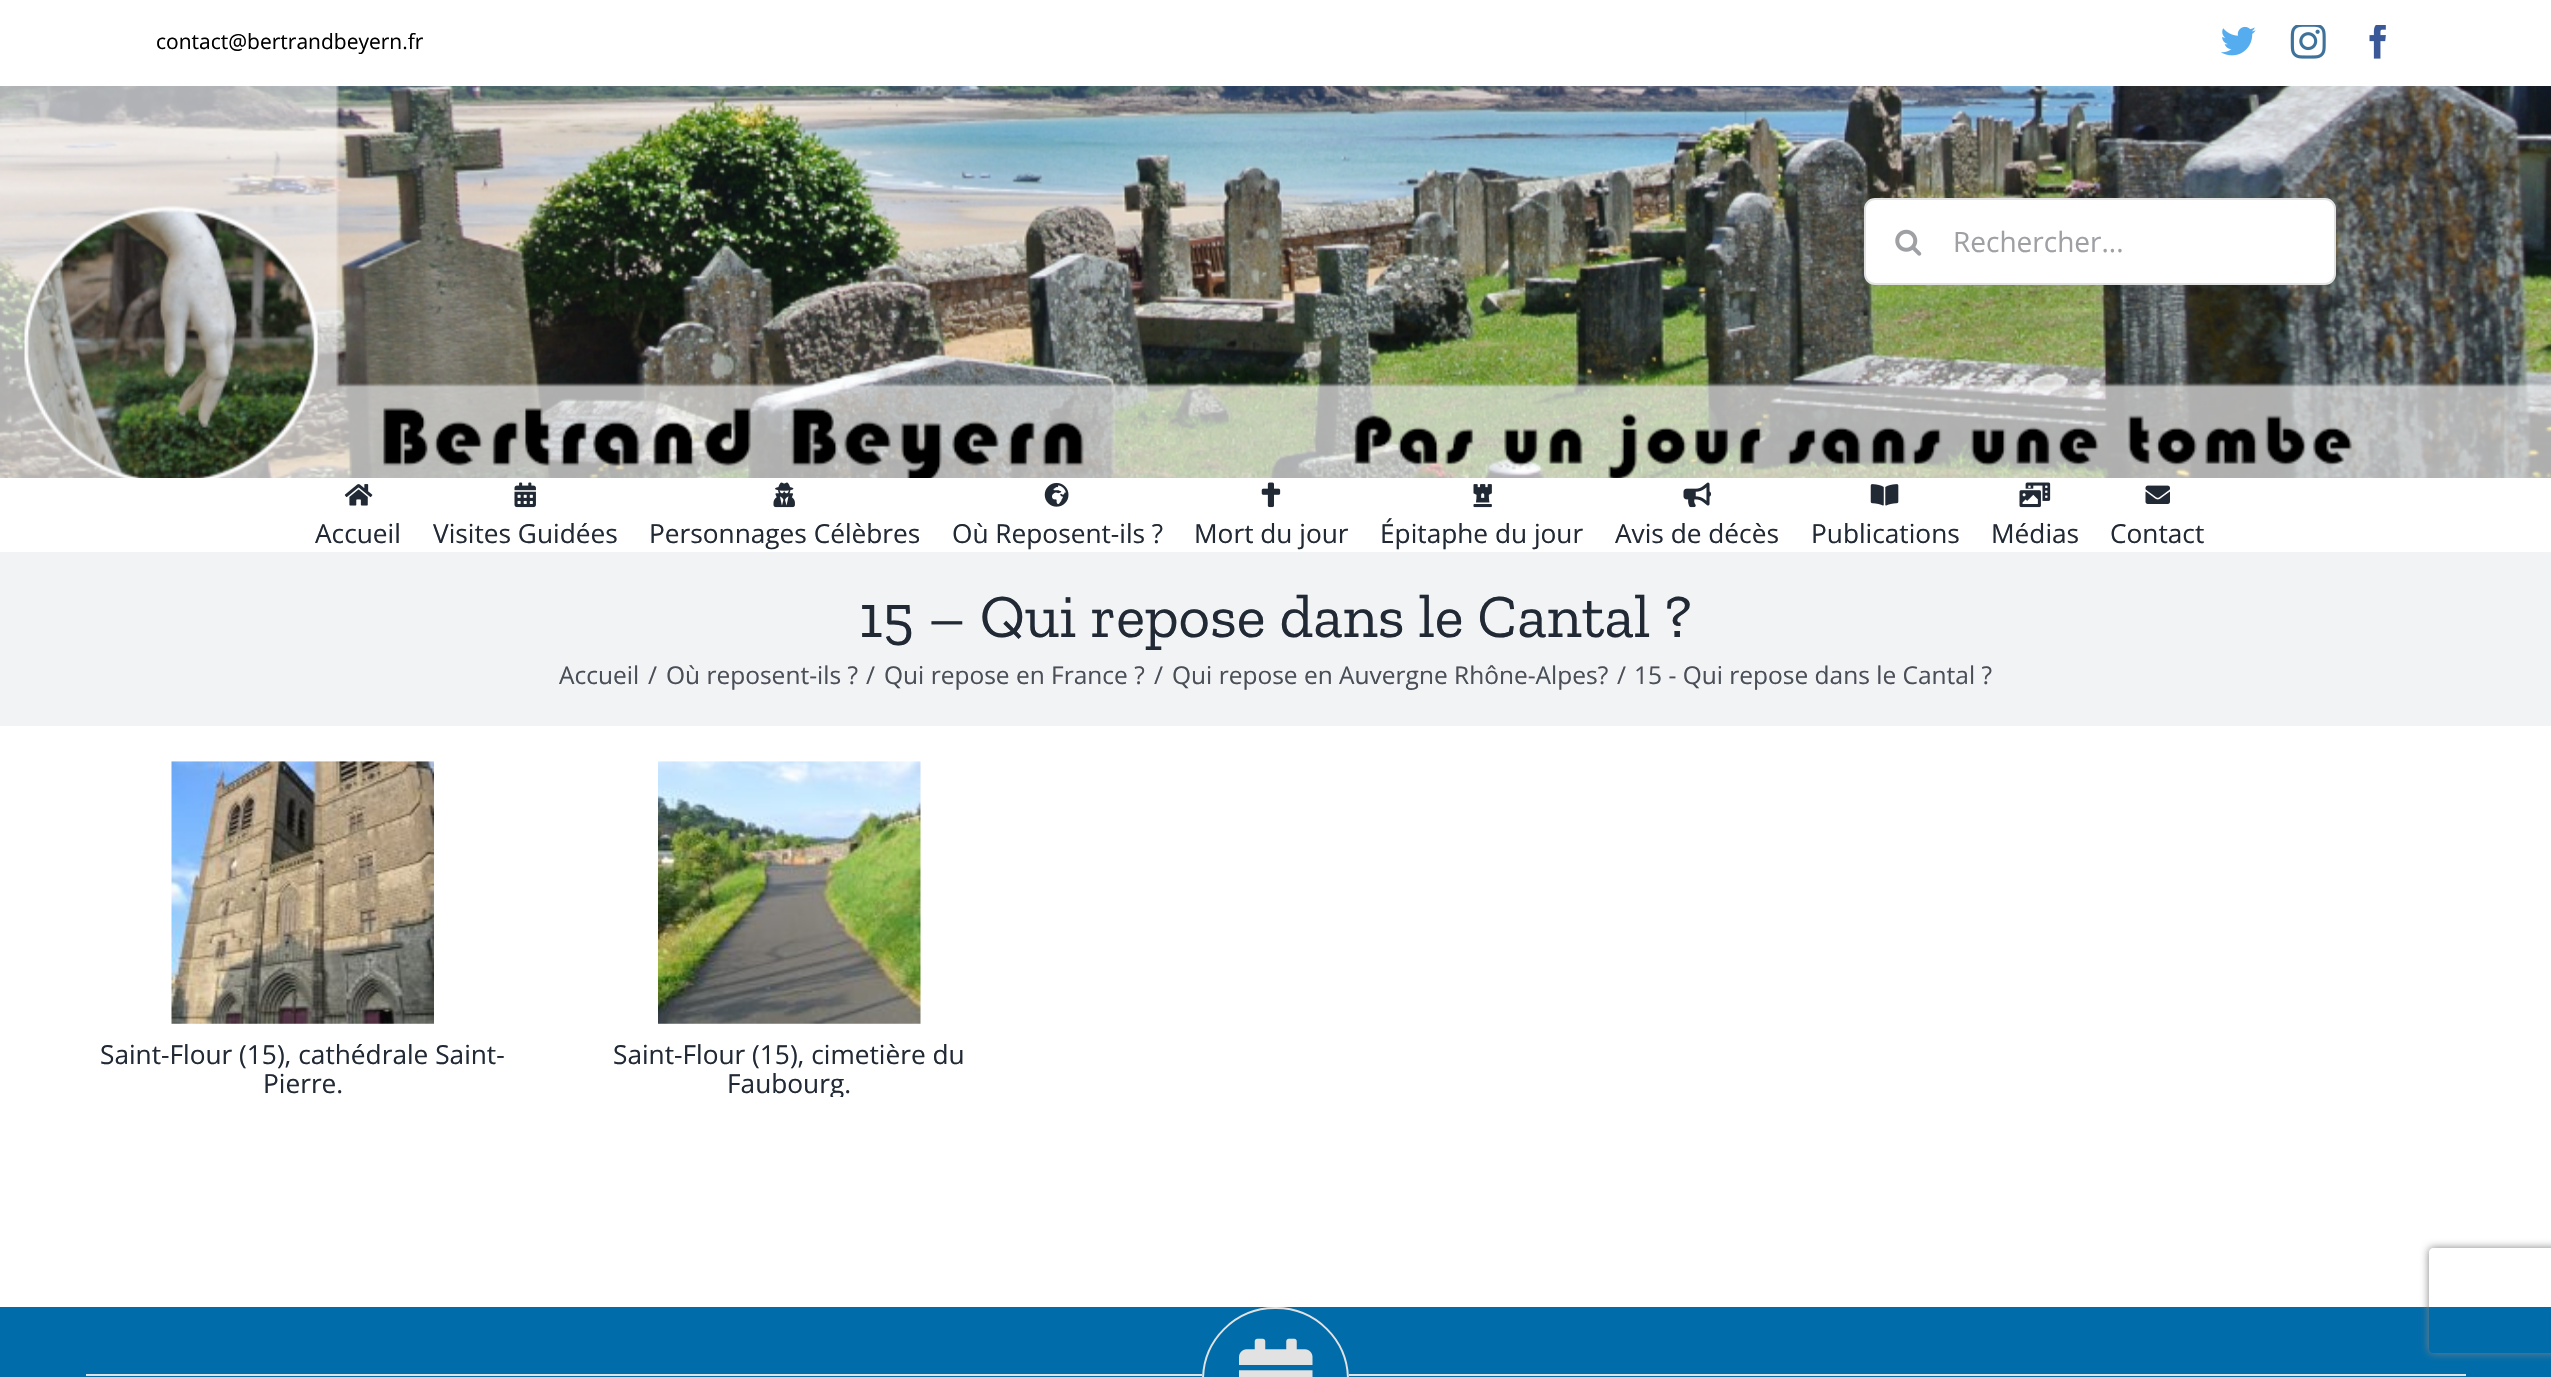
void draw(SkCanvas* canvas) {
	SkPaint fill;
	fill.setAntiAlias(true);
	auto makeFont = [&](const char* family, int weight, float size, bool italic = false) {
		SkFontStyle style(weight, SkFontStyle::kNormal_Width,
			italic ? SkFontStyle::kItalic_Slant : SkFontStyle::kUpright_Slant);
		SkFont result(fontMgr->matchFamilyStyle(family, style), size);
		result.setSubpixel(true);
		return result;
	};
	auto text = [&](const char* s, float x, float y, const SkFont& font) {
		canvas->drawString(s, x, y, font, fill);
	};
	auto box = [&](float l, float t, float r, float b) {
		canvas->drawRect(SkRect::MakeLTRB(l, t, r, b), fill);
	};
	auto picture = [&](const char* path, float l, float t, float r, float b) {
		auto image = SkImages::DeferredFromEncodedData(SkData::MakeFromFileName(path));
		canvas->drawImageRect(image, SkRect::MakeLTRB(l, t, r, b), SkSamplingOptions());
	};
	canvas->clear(0xFFFFFFFF);
	picture("image0.png", 2221, 26, 2256, 56);
	picture("image1.png", 2290, 25, 2326, 59);
	picture("image2.png", 2369, 25, 2386, 59);
	picture("image3.png", 0, 86, 2551, 478);
	fill.setColor(0xFFFFFFFF);
	canvas->drawRoundRect(SkRect::MakeLTRB(1865, 199, 2335, 284), 10, 10, fill);
	fill.setStyle(SkPaint::kStroke_Style);
	fill.setStrokeWidth(2);
	fill.setColor(0xFFE2E2E2);
	canvas->drawRoundRect(SkRect::MakeLTRB(1865, 199, 2335, 284), 10, 10, fill);
	picture("image4.png", 1895, 229, 1922, 256);
	picture("image5.png", 344, 484, 373, 506);
	picture("image6.png", 514, 482, 536, 508);
	picture("image7.png", 773, 482, 795, 508);
	picture("image8.png", 1044, 482, 1069, 507);
	picture("image9.png", 1261, 482, 1281, 508);
	picture("image10.png", 1473, 484, 1492, 508);
	picture("image11.png", 1683, 482, 1711, 508);
	picture("image12.png", 1870, 484, 1899, 506);
	picture("image13.png", 2019, 482, 2051, 508);
	picture("image14.png", 2145, 485, 2170, 504);
	fill.setStyle(SkPaint::kFill_Style);
	fill.setColor(0xFFF2F3F5);
	box(0, 552, 2551, 726);
	picture("image15.png", 171, 761, 434, 1024);
	picture("image16.png", 658, 761, 921, 1024);
	fill.setColor(0xFF006CAA);
	box(0, 1307, 2551, 1377);
	fill.setColor(0xFFE2E2E2);
	box(86, 1374, 1202, 1376);
	fill.setStyle(SkPaint::kStroke_Style);
	canvas->drawRoundRect(SkRect::MakeLTRB(1203, 1308, 1348, 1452), 72.5f, 72.5f, fill);
	picture("image17.png", 1239, 1338, 1313, 1377);
	fill.setStyle(SkPaint::kFill_Style);
	box(1349, 1374, 2466, 1376);
	canvas->save();
	canvas->clipPath(SkPathBuilder(SkPathFillType::kEvenOdd).moveTo(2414, 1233).lineTo(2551, 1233).lineTo(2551, 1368).lineTo(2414, 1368).close().moveTo(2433, 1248).lineTo(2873, 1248).cubicTo(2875, 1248, 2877, 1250, 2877, 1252).lineTo(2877, 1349).cubicTo(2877, 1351, 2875, 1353, 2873, 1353).lineTo(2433, 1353).cubicTo(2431, 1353, 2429, 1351, 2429, 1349).lineTo(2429, 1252).cubicTo(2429, 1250, 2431, 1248, 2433, 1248).close().detach(), true);
	fill.setColor(0xFF808080);
	fill.setMaskFilter(SkMaskFilter::MakeBlur(kNormal_SkBlurStyle, 4.5f));
	canvas->drawRoundRect(SkRect::MakeLTRB(2429, 1248, 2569, 1353), 4, 4, fill);
	fill.setMaskFilter(nullptr);
	canvas->restore();
	auto font1 = makeFont("Open Sans", 400, 21);
	fill.setColor(0xFF000000);
	text("contact@bertrandbeyern.fr", 156, 49, font1);
	auto font2 = makeFont("Open Sans", 400, 28);
	fill.setColor(0xFF9EA0A4);
	text("Rechercher...", 1953, 252, font2);
	auto font3 = makeFont("Open Sans", 400, 26.25f);
	fill.setColor(0xFF212934);
	text("Accueil", 315, 543, font3);
	text("Visites Guidées", 433, 543, font3);
	text("Personnages Célèbres", 649, 543, font3);
	text("Où Reposent-ils ?", 952, 543, font3);
	text("Mort du jour", 1194, 543, font3);
	text("Épitaphe du jour", 1380, 543, font3);
	text("Avis de décès", 1615, 543, font3);
	text("Publications", 1811, 543, font3);
	text("Médias", 1991, 543, font3);
	text("Contact", 2110, 543, font3);
	auto font4 = makeFont("Zilla Slab", 400, 61.25f);
	text("15 – Qui repose dans le Cantal ?", 859, 637, font4);
	auto font5 = makeFont("Open Sans", 400, 24.5f);
	fill.setColor(0xFF4A4E57);
	text("Accueil", 559, 684, font5);
	text("/", 648, 684, font5);
	text("Où reposent-ils ?", 666, 684, font5);
	text("/", 866, 684, font5);
	text("Qui repose en France ?", 884, 684, font5);
	text("/", 1154, 684, font5);
	text("Qui repose en Auvergne Rhône-Alpes?", 1172, 684, font5);
	text("/", 1617, 684, font5);
	text("15 - Qui repose dans le Cantal ?", 1634, 684, font5);
	fill.setColor(0xFF212934);
	text("Saint-Flour (15), cathédrale Saint-", 100, 1064, font3);
	text("Pierre.", 263, 1093, font3);
	text("Saint-Flour (15), cimetière du", 613, 1064, font3);
	canvas->save();
	canvas->clipRect(SkRect::MakeLTRB(572, 761, 1006, 1097));
	text("Faubourg.", 727, 1093, font3);
	canvas->restore();
}
